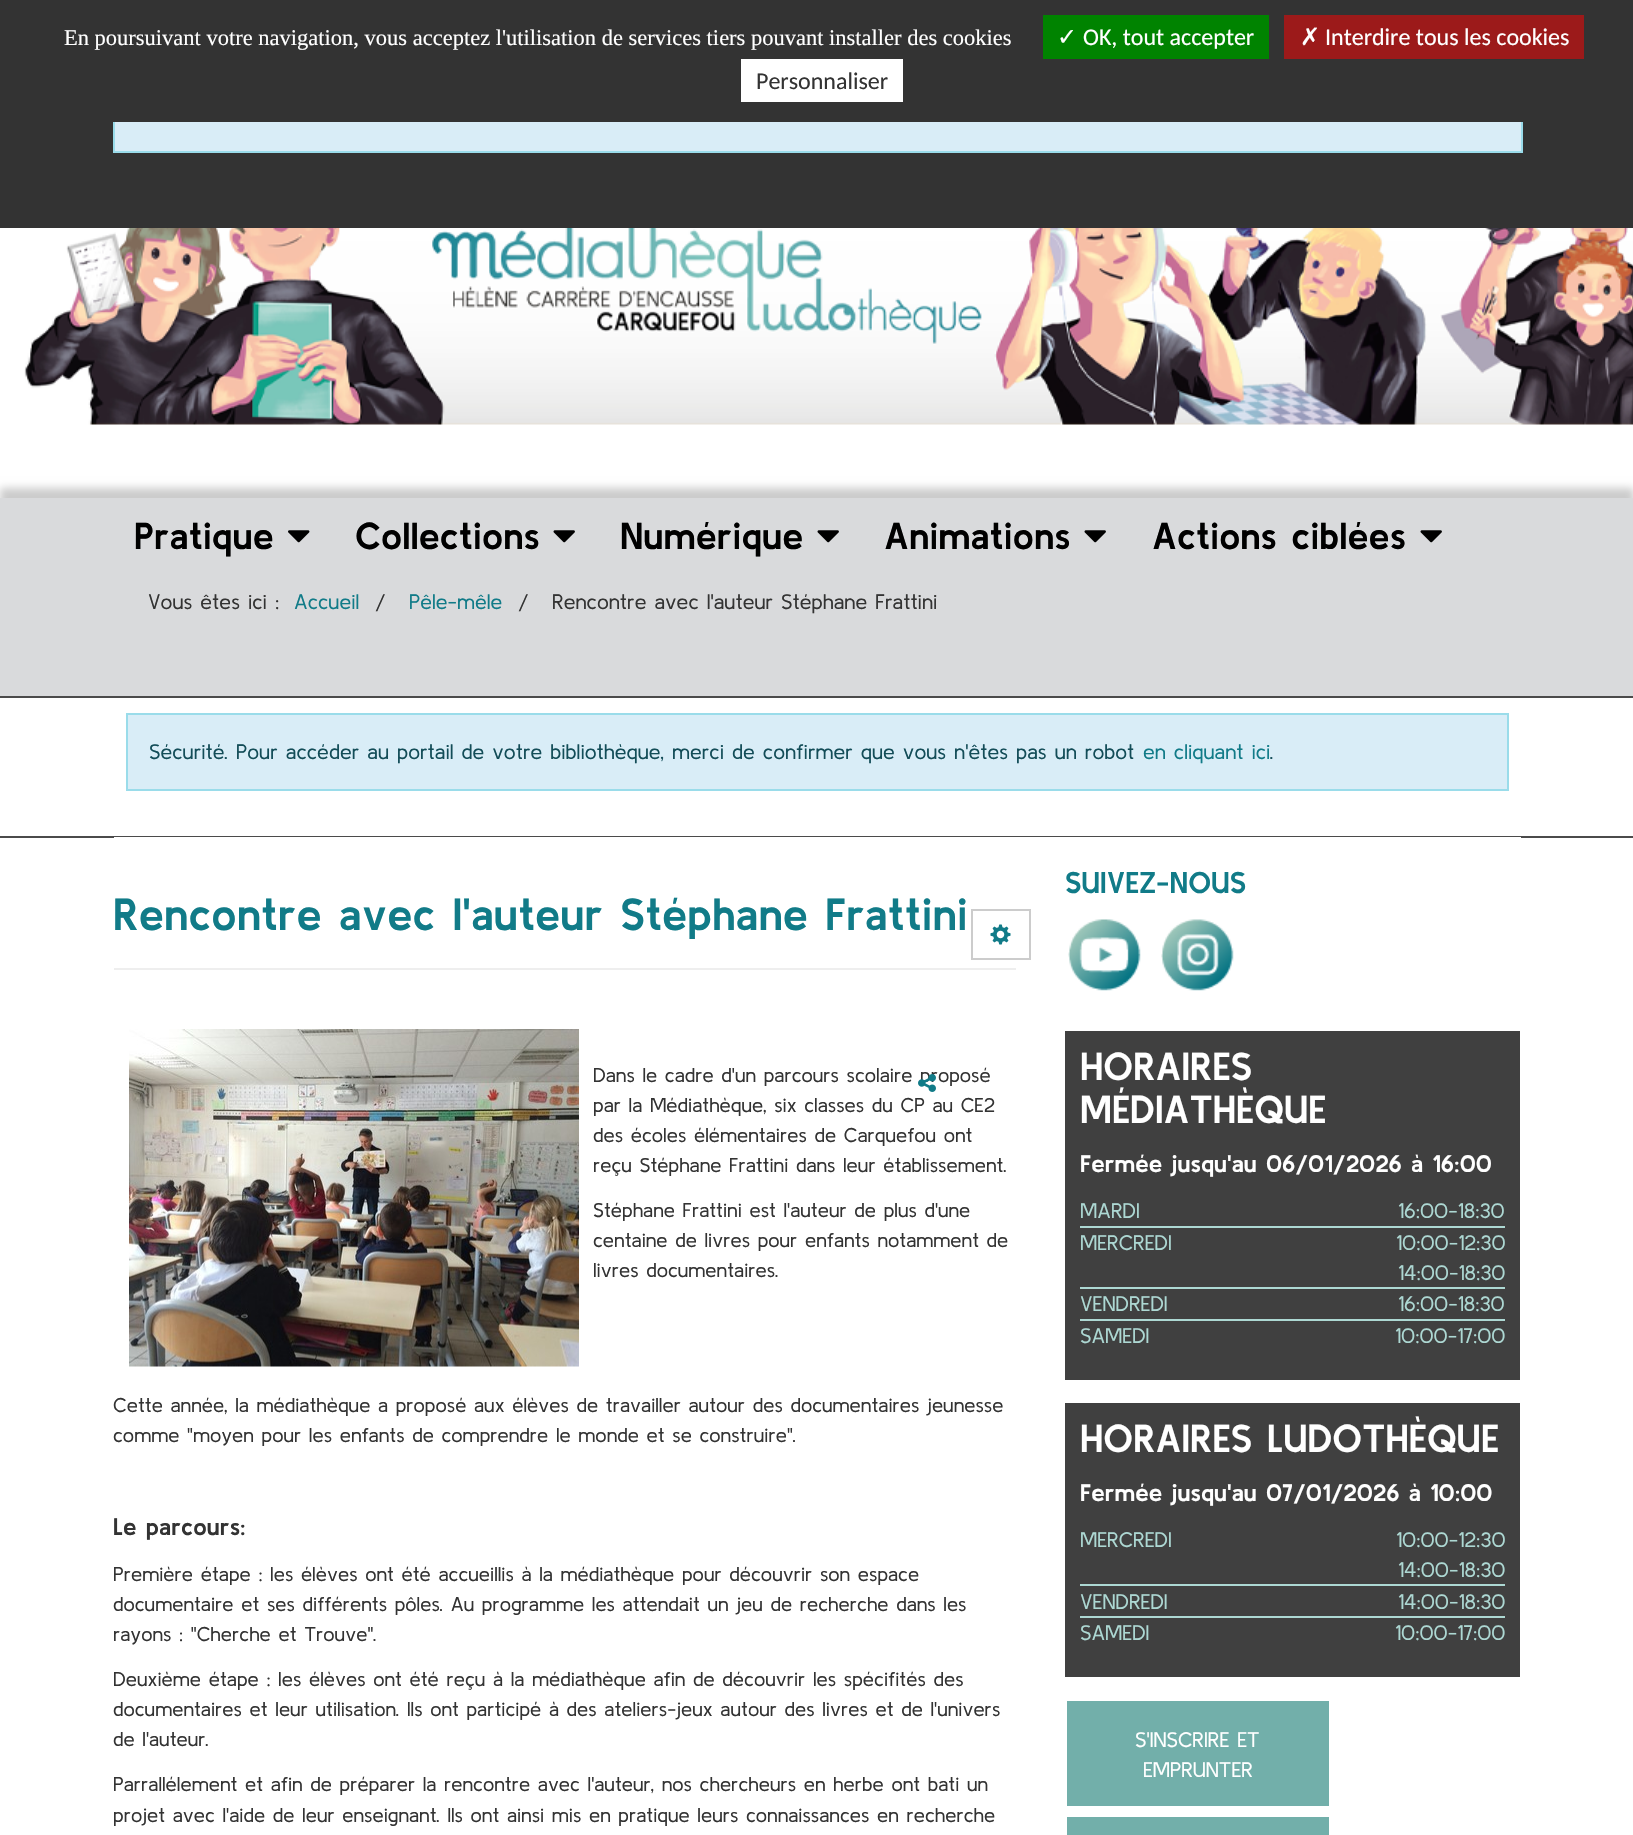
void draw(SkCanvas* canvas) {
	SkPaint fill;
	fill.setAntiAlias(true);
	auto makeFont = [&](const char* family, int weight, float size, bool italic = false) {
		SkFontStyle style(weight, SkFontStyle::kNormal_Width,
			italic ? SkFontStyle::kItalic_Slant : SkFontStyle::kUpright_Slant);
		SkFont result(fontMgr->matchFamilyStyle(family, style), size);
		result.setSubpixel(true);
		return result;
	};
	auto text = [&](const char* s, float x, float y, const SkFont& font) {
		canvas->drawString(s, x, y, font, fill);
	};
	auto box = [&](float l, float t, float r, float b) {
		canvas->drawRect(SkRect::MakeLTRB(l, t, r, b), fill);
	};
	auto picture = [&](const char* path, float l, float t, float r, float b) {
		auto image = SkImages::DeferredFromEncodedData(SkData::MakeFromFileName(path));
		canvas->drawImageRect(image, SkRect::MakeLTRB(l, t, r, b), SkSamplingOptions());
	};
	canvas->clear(0xFFFFFFFF);
	fill.setColor(0xFF333333);
	box(0, 122, 1633, 228);
	fill.setColor(0xFFD9EDF7);
	box(115, 122, 1521, 151);
	fill.setStyle(SkPaint::kStroke_Style);
	fill.setStrokeWidth(2);
	fill.setColor(0xFF9ADCEA);
	canvas->drawRect(SkRect::MakeLTRB(114, 46, 1522, 152), fill);
	fill.setStyle(SkPaint::kFill_Style);
	fill.setColor(0xFF333333);
	box(0, 0, 1633, 122);
	fill.setColor(0xFF008300);
	box(1043, 15, 1269, 59);
	fill.setColor(0xFF9C1A1A);
	box(1284, 15, 1584, 59);
	fill.setColor(0xFFFFFFFF);
	box(741, 59, 903, 102);
	picture("image0.png", 24, 228, 1633, 425);
	fill.setColor(0xFFD9DADC);
	box(0, 575, 1633, 696);
	fill.setColor(0xFFCCCCCC);
	fill.setMaskFilter(SkMaskFilter::MakeBlur(kNormal_SkBlurStyle, 4));
	canvas->drawRect(SkRect::MakeLTRB(0, 488, 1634, 564), fill);
	fill.setMaskFilter(nullptr);
	fill.setColor(0xFFD9DADC);
	box(0, 498, 1633, 575);
	picture("image1.png", 288, 530, 310, 543);
	picture("image2.png", 553, 530, 575, 543);
	picture("image2.png", 817, 530, 839, 543);
	picture("image2.png", 1084, 530, 1106, 543);
	picture("image2.png", 1420, 530, 1442, 543);
	fill.setColor(0xFF4B4B4B);
	box(0, 696, 1633, 698);
	box(0, 836, 1633, 838);
	fill.setColor(0xFFD9EDF7);
	canvas->drawRect(SkRect::MakeLTRB(127, 714, 1508, 790), fill);
	fill.setStyle(SkPaint::kStroke_Style);
	fill.setColor(0xFF9ADCEA);
	canvas->drawRect(SkRect::MakeLTRB(127, 714, 1508, 790), fill);
	fill.setStyle(SkPaint::kFill_Style);
	fill.setColor(0xFFFFFFFF);
	box(114, 837, 1521, 838);
	fill.setColor(0xFFEEEEEE);
	box(114, 968, 1016, 970);
	fill.setStyle(SkPaint::kStroke_Style);
	fill.setColor(0xFFCCCCCC);
	canvas->drawRect(SkRect::MakeLTRB(972, 910, 1030, 959), fill);
	picture("image3.png", 990, 924, 1011, 945);
	picture("image4.png", 129, 1029, 579, 1367);
	picture("image6.png", 1068, 919, 1141, 991);
	picture("image7.png", 1161, 919, 1234, 991);
	fill.setStyle(SkPaint::kFill_Style);
	fill.setColor(0xFF404040);
	box(1065, 1031, 1520, 1380);
	fill.setColor(0xFFADD8D3);
	box(1080, 1226, 1505, 1228);
	box(1080, 1287, 1505, 1289);
	box(1080, 1319, 1505, 1321);
	fill.setColor(0xFF404040);
	box(1065, 1403, 1520, 1677);
	fill.setColor(0xFFADD8D3);
	box(1080, 1584, 1505, 1586);
	box(1080, 1616, 1505, 1618);
	fill.setColor(0xFF72AFAA);
	box(1067, 1701, 1329, 1806);
	box(1067, 1817, 1329, 1835);
	auto font1 = makeFont("Liberation Serif", 400, 22.5f);
	fill.setColor(0xFFFFFFFF);
	text("En poursuivant votre navigation, vous acceptez l'utilisation de services tiers pouvant installer des cookies", 64, 45, font1);
	auto font2 = makeFont("DejaVu Sans", 400, 24);
	text("✓", 1057, 45, font2);
	auto font3 = makeFont("Carlito", 400, 24);
	text("OK, tout accepter", 1083, 45, font3);
	text("✗", 1300, 45, font2);
	text("Interdire tous les cookies", 1325, 45, font3);
	fill.setColor(0xFF333333);
	text("Personnaliser", 756, 89, font3);
	auto font4 = makeFont("Kulim Park", 700, 37.5f);
	fill.setColor(0xFF000000);
	text("Pratique", 134, 549, font4);
	text("Collections", 355, 549, font4);
	text("Numérique", 620, 549, font4);
	text("Animations", 884, 549, font4);
	text("Actions ciblées", 1152, 549, font4);
	auto font5 = makeFont("Kulim Park", 400, 21);
	fill.setColor(0xFF333333);
	text("Vous êtes ici :", 148, 609, font5);
	fill.setColor(0xFF117B88);
	text("Accueil", 294, 609, font5);
	fill.setColor(0xFF333333);
	text("/", 375, 609, font5);
	fill.setColor(0xFF117B88);
	text("Pêle-mêle", 409, 609, font5);
	fill.setColor(0xFF333333);
	text("/", 518, 609, font5);
	text("Rencontre avec l'auteur Stéphane Frattini", 552, 609, font5);
	fill.setColor(0xFF134D58);
	text("Sécurité. Pour accéder au portail de votre bibliothèque, merci de confirmer que vous n'êtes pas un robot", 149, 759, font5);
	fill.setColor(0xFF117B88);
	text("en cliquant ici", 1143, 759, font5);
	fill.setColor(0xFF134D58);
	text(".", 1270, 759, font5);
	auto font6 = makeFont("Kulim Park", 700, 45);
	fill.setColor(0xFF117B88);
	text("Rencontre avec l'auteur Stéphane Frattini", 113, 930, font6);
	auto font7 = makeFont("Kulim Park", 400, 20);
	fill.setColor(0xFF333333);
	text("Dans le cadre d'un parcours scolaire proposé", 593, 1082, font7);
	text("par la Médiathèque, six classes du CP au CE2", 593, 1112, font7);
	text("des écoles élémentaires de Carquefou ont", 593, 1142, font7);
	text("reçu Stéphane Frattini dans leur établissement.", 593, 1172, font7);
	picture("image5.png", 918, 1074, 936, 1092);
	text("Stéphane Frattini est l'auteur de plus d'une", 593, 1217, font7);
	text("centaine de livres pour enfants notamment de", 593, 1247, font7);
	text("livres documentaires.", 593, 1277, font7);
	text("Cette année, la médiathèque a proposé aux élèves de travailler autour des documentaires jeunesse", 113, 1412, font7);
	text("comme \"moyen pour les enfants de comprendre le monde et se construire\".", 113, 1442, font7);
	auto font8 = makeFont("Kulim Park", 700, 24);
	text("Le parcours:", 113, 1535, font8);
	text("Première étape : les élèves ont été accueillis à la médiathèque pour découvrir son espace", 113, 1581, font7);
	text("documentaire et ses différents pôles. Au programme les attendait un jeu de recherche dans les", 113, 1611, font7);
	text("rayons : \"Cherche et Trouve\".", 113, 1641, font7);
	text("Deuxième étape : les élèves ont été reçu à la médiathèque afin de découvrir les spécifités des", 113, 1686, font7);
	text("documentaires et leur utilisation. Ils ont participé à des ateliers-jeux autour des livres et de l'univers", 113, 1716, font7);
	text("de l'auteur.", 113, 1746, font7);
	text("Parrallélement et afin de préparer la rencontre avec l'auteur, nos chercheurs en herbe ont bati un", 113, 1791, font7);
	text("projet avec l'aide de leur enseignant. Ils ont ainsi mis en pratique leurs connaissances en recherche", 113, 1822, font7);
	auto font9 = makeFont("Kulim Park", 700, 30);
	fill.setColor(0xFF117B88);
	text("SUIVEZ-NOUS", 1065, 893, font9);
	auto font10 = makeFont("Kulim Park", 700, 39);
	fill.setColor(0xFFFFFFFF);
	text("HORAIRES", 1080, 1080, font10);
	text("MÉDIATHÈQUE", 1080, 1123, font10);
	text("Fermée jusqu'au 06/01/2026 à 16:00", 1080, 1172, font8);
	fill.setColor(0xFFADD8D3);
	text("MARDI", 1080, 1218, font5);
	text("16:00-18:30", 1398, 1218, font5);
	text("MERCREDI", 1080, 1250, font5);
	text("10:00-12:30", 1396, 1250, font5);
	text("14:00-18:30", 1398, 1280, font5);
	text("VENDREDI", 1080, 1311, font5);
	text("16:00-18:30", 1398, 1311, font5);
	text("SAMEDI", 1080, 1343, font5);
	text("10:00-17:00", 1395, 1343, font5);
	fill.setColor(0xFFFFFFFF);
	text("HORAIRES LUDOTHÈQUE", 1080, 1452, font10);
	text("Fermée jusqu'au 07/01/2026 à 10:00", 1080, 1501, font8);
	fill.setColor(0xFFADD8D3);
	text("MERCREDI", 1080, 1547, font5);
	text("10:00-12:30", 1396, 1547, font5);
	text("14:00-18:30", 1398, 1577, font5);
	text("VENDREDI", 1080, 1609, font5);
	text("14:00-18:30", 1398, 1609, font5);
	text("SAMEDI", 1080, 1640, font5);
	text("10:00-17:00", 1395, 1640, font5);
	fill.setColor(0xFFFFFFFF);
	text("S'INSCRIRE ET", 1135, 1747, font5);
	text("EMPRUNTER", 1143, 1777, font5);
}
